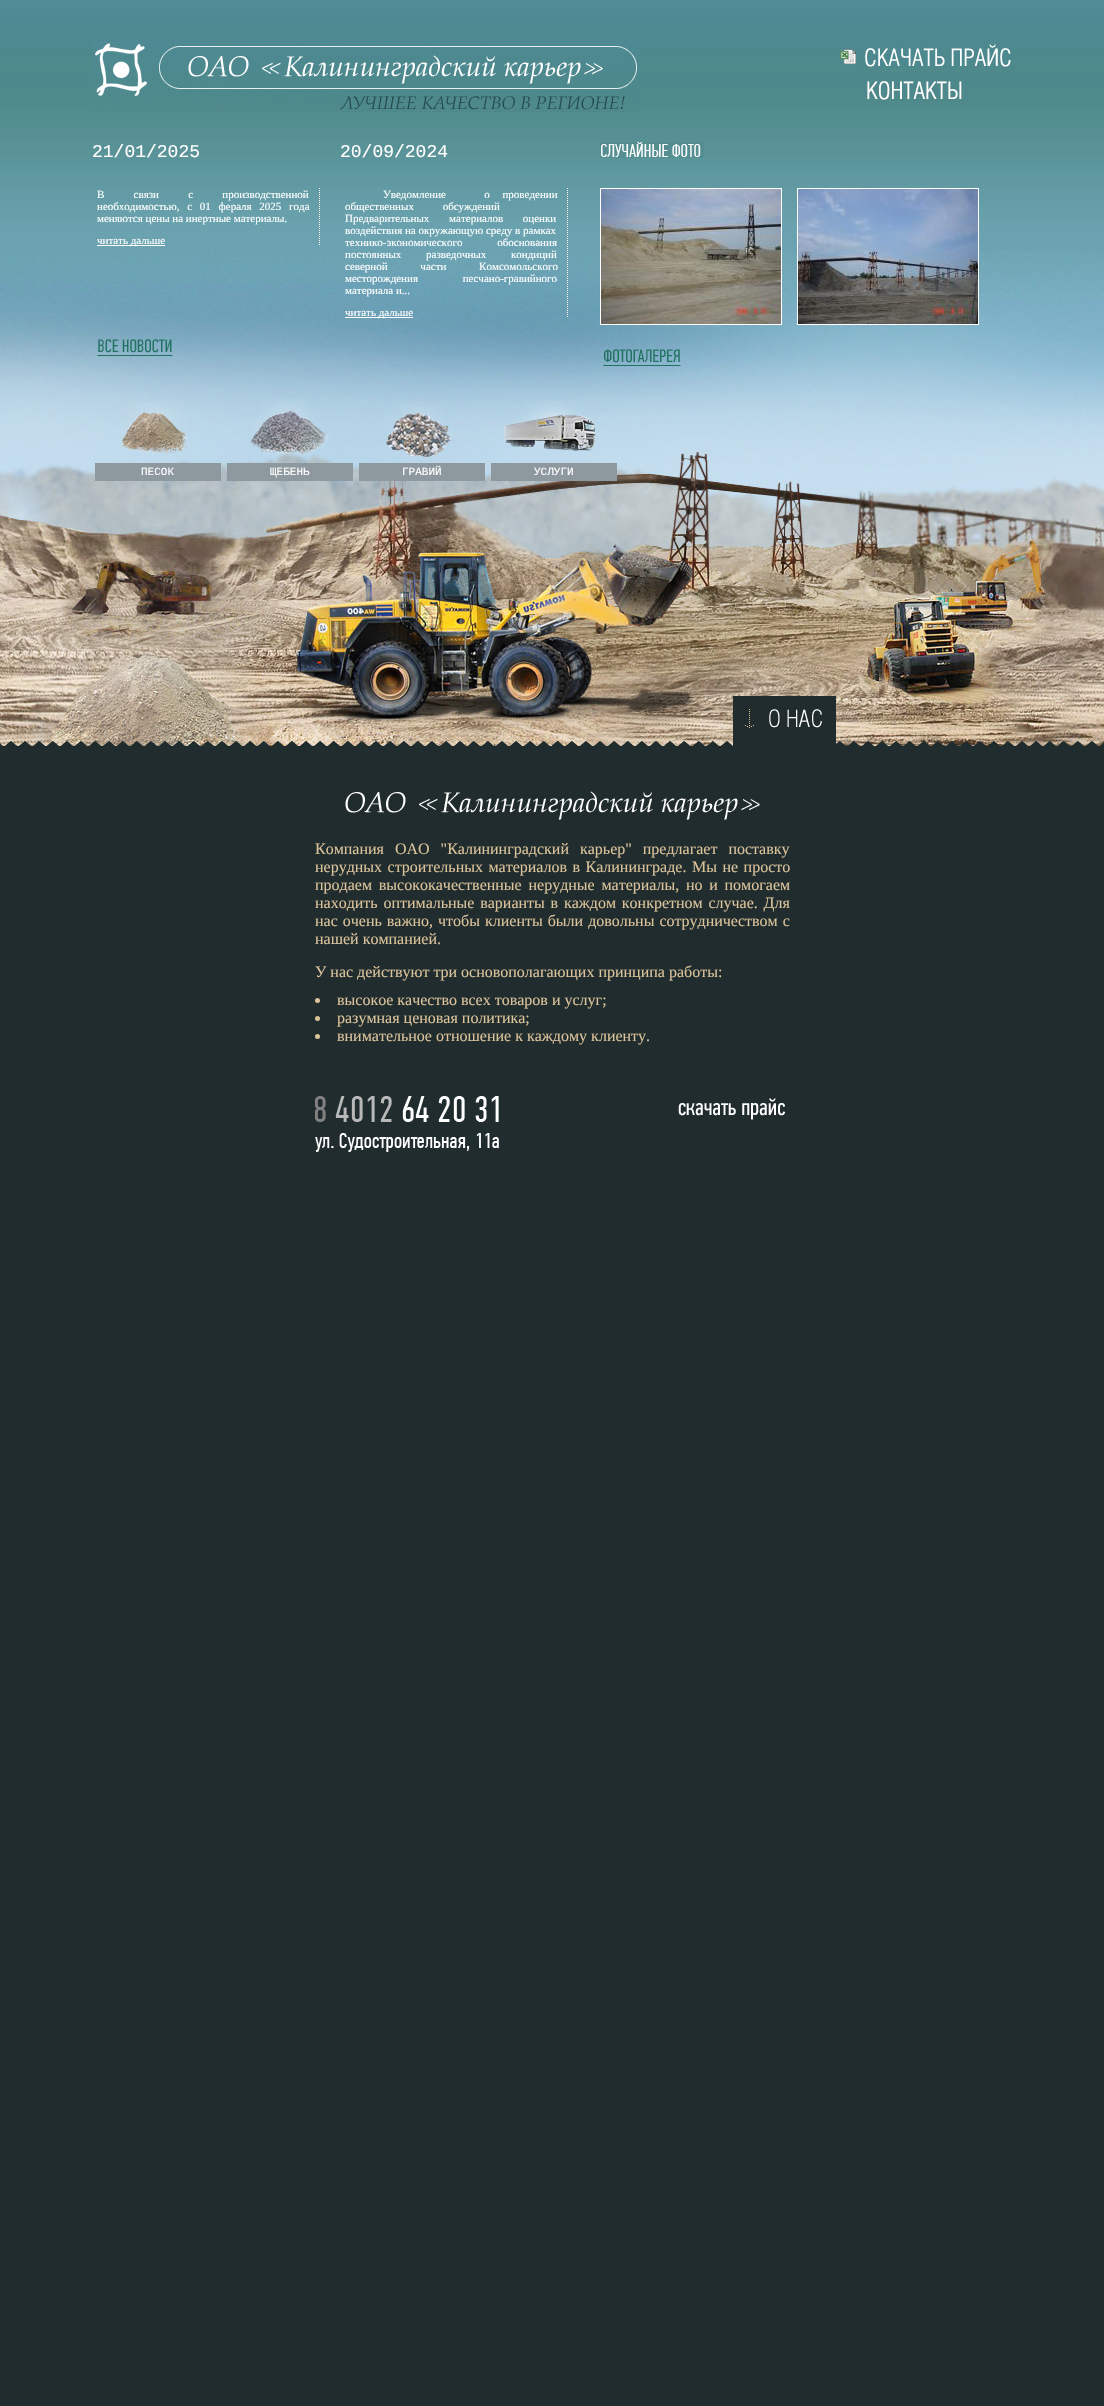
void draw(SkCanvas* canvas) {
	SkPaint fill;
	fill.setAntiAlias(true);
	auto makeFont = [&](const char* family, int weight, float size, bool italic = false) {
		SkFontStyle style(weight, SkFontStyle::kNormal_Width,
			italic ? SkFontStyle::kItalic_Slant : SkFontStyle::kUpright_Slant);
		SkFont result(fontMgr->matchFamilyStyle(family, style), size);
		result.setSubpixel(true);
		return result;
	};
	auto text = [&](const char* s, float x, float y, const SkFont& font) {
		canvas->drawString(s, x, y, font, fill);
	};
	auto spacedText = [&](const char* s, float x, float y, const SkFont& font, const SkPaint& ink, float letter, float word) {
		std::vector<SkGlyphID> glyphs(font.countText(s, strlen(s), SkTextEncoding::kUTF8));
		std::vector<float> xs(glyphs.size());
		font.textToGlyphs(s, strlen(s), SkTextEncoding::kUTF8, glyphs);
		font.getXPos(glyphs, xs, x);
		float extra = 0;
		for (size_t i = 0; i < glyphs.size(); i++) {
			xs[i] += extra;
			extra += letter + word * (glyphs[i] == font.unicharToGlyph(' '));
		}
		canvas->drawTextBlob(SkTextBlob::MakeFromPosHGlyphs(glyphs, xs, y, font), 0, 0, ink);
	};
	auto box = [&](float l, float t, float r, float b) {
		canvas->drawRect(SkRect::MakeLTRB(l, t, r, b), fill);
	};
	auto picture = [&](const char* path, float l, float t, float r, float b) {
		auto image = SkImages::DeferredFromEncodedData(SkData::MakeFromFileName(path));
		canvas->drawImageRect(image, SkRect::MakeLTRB(l, t, r, b), SkSamplingOptions());
	};
	canvas->clear(0xFF202C2D);
	picture("image0.png", 0, 0, 1104, 251);
	picture("image1.png", 0, 251, 1104, 747);
	picture("image2.png", 92, 40, 640, 112);
	picture("image3.png", 840, 43, 1012, 67);
	picture("image4.png", 864, 78, 968, 102);
	fill.setStyle(SkPaint::kStroke_Style);
	fill.setStrokeWidth(1);
	fill.setColor(0xFFFFFFFF);
	fill.setPathEffect(SkDashPathEffect::Make({{1, 1}}, 0));
	canvas->drawPath(SkPathBuilder().moveTo(319.5f, 188).lineTo(319.5f, 246).detach(), fill);
	fill.setPathEffect(nullptr);
	fill.setStyle(SkPaint::kFill_Style);
	box(97, 245, 165, 246);
	fill.setStyle(SkPaint::kStroke_Style);
	fill.setPathEffect(SkDashPathEffect::Make({{1, 1}}, 0));
	canvas->drawPath(SkPathBuilder().moveTo(567.5f, 188).lineTo(567.5f, 318).detach(), fill);
	fill.setPathEffect(nullptr);
	fill.setStyle(SkPaint::kFill_Style);
	box(345, 317, 413, 318);
	picture("image5.png", 97, 339, 173, 356);
	picture("image6.png", 600, 142, 704, 158);
	fill.setStyle(SkPaint::kStroke_Style);
	canvas->drawRect(SkRect::MakeLTRB(600.5f, 188.5f, 781.5f, 324.5f), fill);
	picture("image7.png", 601, 189, 781, 324);
	canvas->drawRect(SkRect::MakeLTRB(797.5f, 188.5f, 978.5f, 324.5f), fill);
	picture("image8.png", 798, 189, 978, 324);
	picture("image9.png", 603, 349, 681, 366);
	picture("image10.png", 122, 401, 189, 454);
	fill.setStyle(SkPaint::kFill_Style);
	fill.setColor(0xFF8E999F);
	box(95, 463, 221, 481);
	picture("image11.png", 250, 399, 329, 456);
	box(227, 463, 353, 481);
	picture("image12.png", 385, 402, 452, 458);
	box(359, 463, 485, 481);
	picture("image13.png", 504, 401, 596, 451);
	box(491, 463, 617, 481);
	fill.setColor(0xFF202C2D);
	box(733, 696, 836, 747);
	picture("image14.png", 743, 707, 822, 730);
	picture("image15.png", 345, 789, 760, 820);
	fill.setColor(0xFFDBC39B);
	canvas->drawCircle(317.5f, 1000.5f, 2.5f, fill);
	canvas->drawCircle(317.5f, 1018.5f, 2.5f, fill);
	canvas->drawCircle(317.5f, 1036.5f, 2.5f, fill);
	picture("image16.png", 315, 1096, 499, 1152);
	picture("image17.png", 678, 1098, 785, 1121);
	auto font1 = makeFont("Liberation Mono", 400, 18);
	fill.setColor(0xFFFFFFFF);
	text("21/01/2025", 92, 157, font1);
	auto font2 = makeFont("Liberation Serif", 400, 11);
	spacedText("В связи с производственной", 97, 198, font2, fill, 0, 26.5f);
	spacedText("необходимостью, с 01 фераля 2025 года", 97, 210, font2, fill, 0, 5);
	text("меняются цены на инертные материалы.", 97, 222, font2);
	text("читать дальше", 97, 244, font2);
	text("20/09/2024", 340, 157, font1);
	spacedText("Уведомление   о проведении", 383, 198, font2, fill, 0, 10);
	spacedText("общественных обсуждений", 345, 210, font2, fill, 0, 26);
	spacedText("Предварительных материалов оценки", 345, 222, font2, fill, 0, 17);
	text("воздействия на окружающую среду в рамках", 345, 234, font2);
	spacedText("технико-экономического обоснования", 345, 246, font2, fill, 0, 32);
	spacedText("постоянных разведочных кондиций", 345, 258, font2, fill, 0, 22);
	spacedText("северной части Комсомольского", 345, 270, font2, fill, 0, 30);
	spacedText("месторождения песчано-гравийного", 345, 282, font2, fill, 0, 42);
	text("материала и...", 345, 294, font2);
	text("читать дальше", 345, 316, font2);
	auto font3 = makeFont("Liberation Mono", 400, 11);
	text("ПЕСОК", 141, 475, font3);
	text("ЩЕБЕНЬ", 270, 475, font3);
	text("ГРАВИЙ", 402, 475, font3);
	text("УСЛУГИ", 534, 475, font3);
	auto font4 = makeFont("Liberation Serif", 400, 16);
	fill.setColor(0xFFDBC39B);
	spacedText("Компания ОАО \"Калининградский карьер\" предлагает поставку", 315, 854, font4, fill, 0, 7);
	spacedText("нерудных строительных материалов в Калининграде. Мы не просто", 315, 872, font4, fill, 0, 1.5f);
	spacedText("продаем высококачественные нерудные материалы, но и помогаем", 315, 890, font4, fill, 0, 2.75f);
	spacedText("находить оптимальные варианты в каждом конкретном случае. Для", 315, 908, font4, fill, 0, 1.75f);
	spacedText("нас очень важно, чтобы клиенты были довольны сотрудничеством с", 315, 926, font4, fill, 0, 1);
	text("нашей компанией.", 315, 944, font4);
	text("У нас действуют три основополагающих принципа работы:", 315, 977, font4);
	text("высокое качество всех товаров и услуг;", 337, 1005, font4);
	text("разумная ценовая политика;", 337, 1023, font4);
	text("внимательное отношение к каждому клиенту.", 337, 1041, font4);
}
